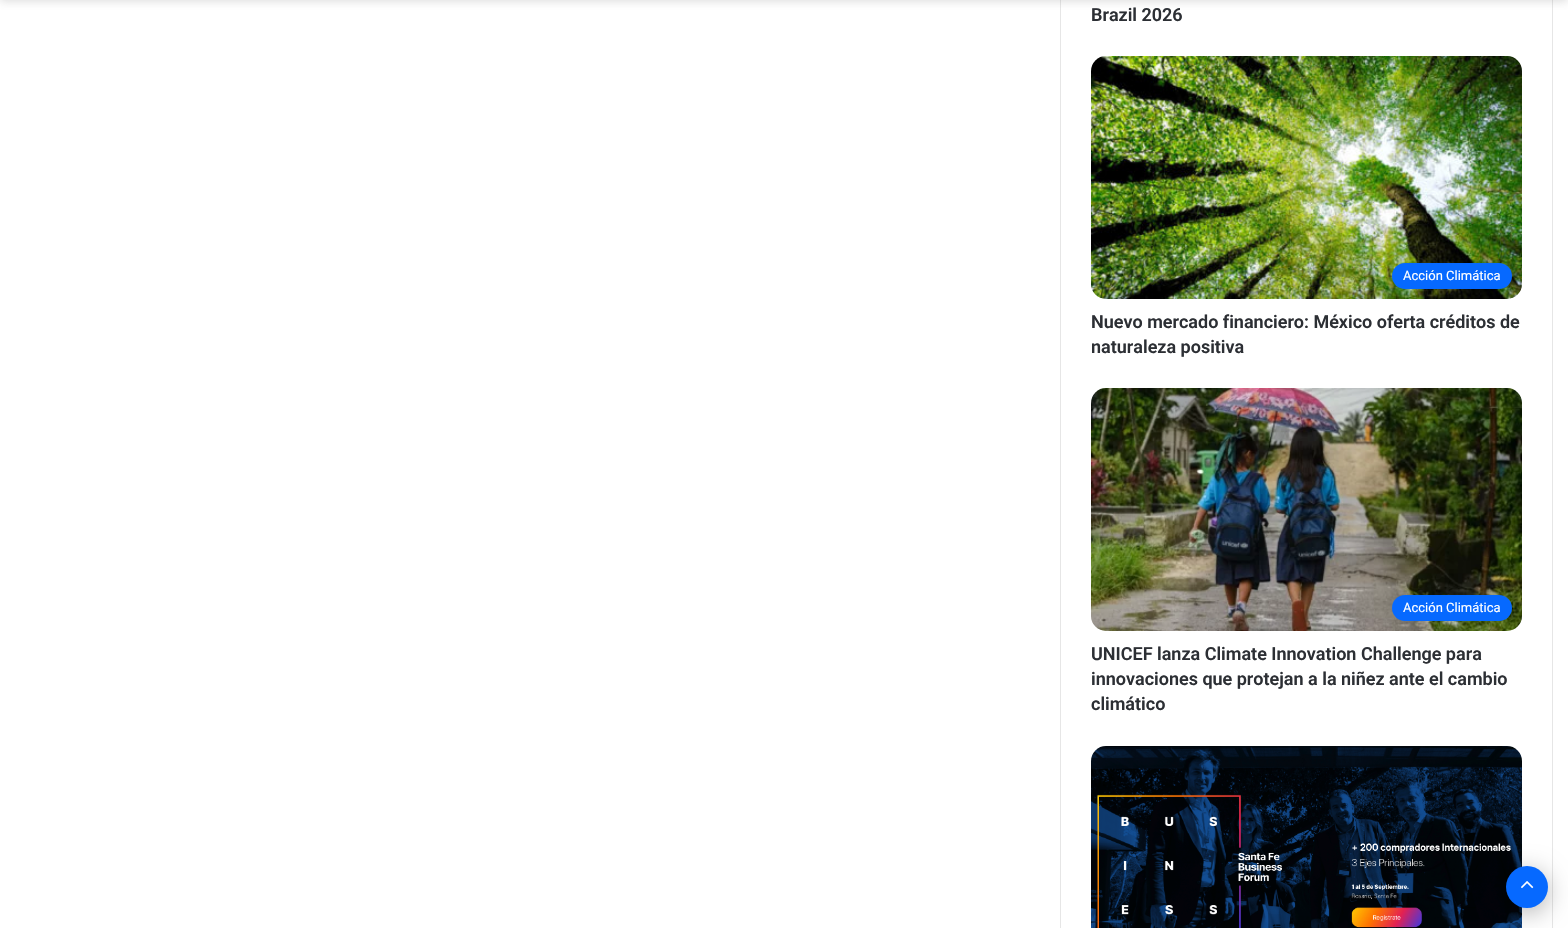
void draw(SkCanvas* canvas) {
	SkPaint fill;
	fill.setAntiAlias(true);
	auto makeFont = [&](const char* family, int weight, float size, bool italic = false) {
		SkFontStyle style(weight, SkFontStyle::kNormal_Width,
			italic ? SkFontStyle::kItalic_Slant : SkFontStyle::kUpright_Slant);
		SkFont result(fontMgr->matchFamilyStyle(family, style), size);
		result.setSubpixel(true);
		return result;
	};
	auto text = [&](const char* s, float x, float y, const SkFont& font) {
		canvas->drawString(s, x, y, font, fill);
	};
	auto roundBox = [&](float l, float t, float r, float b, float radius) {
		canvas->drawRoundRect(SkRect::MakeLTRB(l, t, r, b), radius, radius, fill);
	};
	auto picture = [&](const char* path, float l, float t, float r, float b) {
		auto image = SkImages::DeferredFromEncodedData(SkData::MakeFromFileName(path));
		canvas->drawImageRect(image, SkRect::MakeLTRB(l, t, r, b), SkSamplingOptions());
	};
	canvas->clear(0xFFFFFFFF);
	fill.setStyle(SkPaint::kStroke_Style);
	fill.setStrokeWidth(1);
	fill.setColor(0xFFE6E6E6);
	canvas->drawRect(SkRect::MakeLTRB(1060.5f, -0.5f, 1552.5f, 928.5f), fill);
	fill.setStyle(SkPaint::kFill_Style);
	fill.setColor(0x33636363);
	fill.setMaskFilter(SkMaskFilter::MakeBlur(kNormal_SkBlurStyle, 4));
	canvas->drawRect(SkRect::MakeLTRB(0, -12, 1568, 2), fill);
	fill.setMaskFilter(nullptr);
	picture("image0.png", 1091, 56, 1522, 299);
	fill.setColor(0xFF0669FF);
	roundBox(1392, 263, 1512, 289, 13);
	picture("image1.png", 1091, 388, 1522, 631);
	roundBox(1392, 595, 1512, 621, 13);
	picture("image2.png", 1091, 746, 1522, 928);
	fill.setColor(0x4D000000);
	fill.setMaskFilter(SkMaskFilter::MakeBlur(kNormal_SkBlurStyle, 12.5f));
	canvas->drawRoundRect(SkRect::MakeLTRB(1506, 871, 1548, 913), 21, 21, fill);
	fill.setMaskFilter(nullptr);
	fill.setColor(0xFF0669FF);
	canvas->drawCircle(1527, 887, 21, fill);
	picture("image3.png", 1521, 881, 1534, 889);
	auto font1 = makeFont("Roboto", 600, 18);
	fill.setColor(0xFF2C2F34);
	text("Brazil 2026", 1091, 21, font1);
	auto font2 = makeFont("Roboto", 400, 13);
	fill.setColor(0xFFFFFFFF);
	text("Acción Climática", 1403, 280, font2);
	fill.setColor(0xFF2C2F34);
	text("Nuevo mercado financiero: México oferta créditos de", 1091, 328, font1);
	text("naturaleza positiva", 1091, 353, font1);
	fill.setColor(0xFFFFFFFF);
	text("Acción Climática", 1403, 612, font2);
	fill.setColor(0xFF2C2F34);
	text("UNICEF lanza Climate Innovation Challenge para", 1091, 660, font1);
	text("innovaciones que protejan a la niñez ante el cambio", 1091, 685, font1);
	text("climático", 1091, 710, font1);
}
